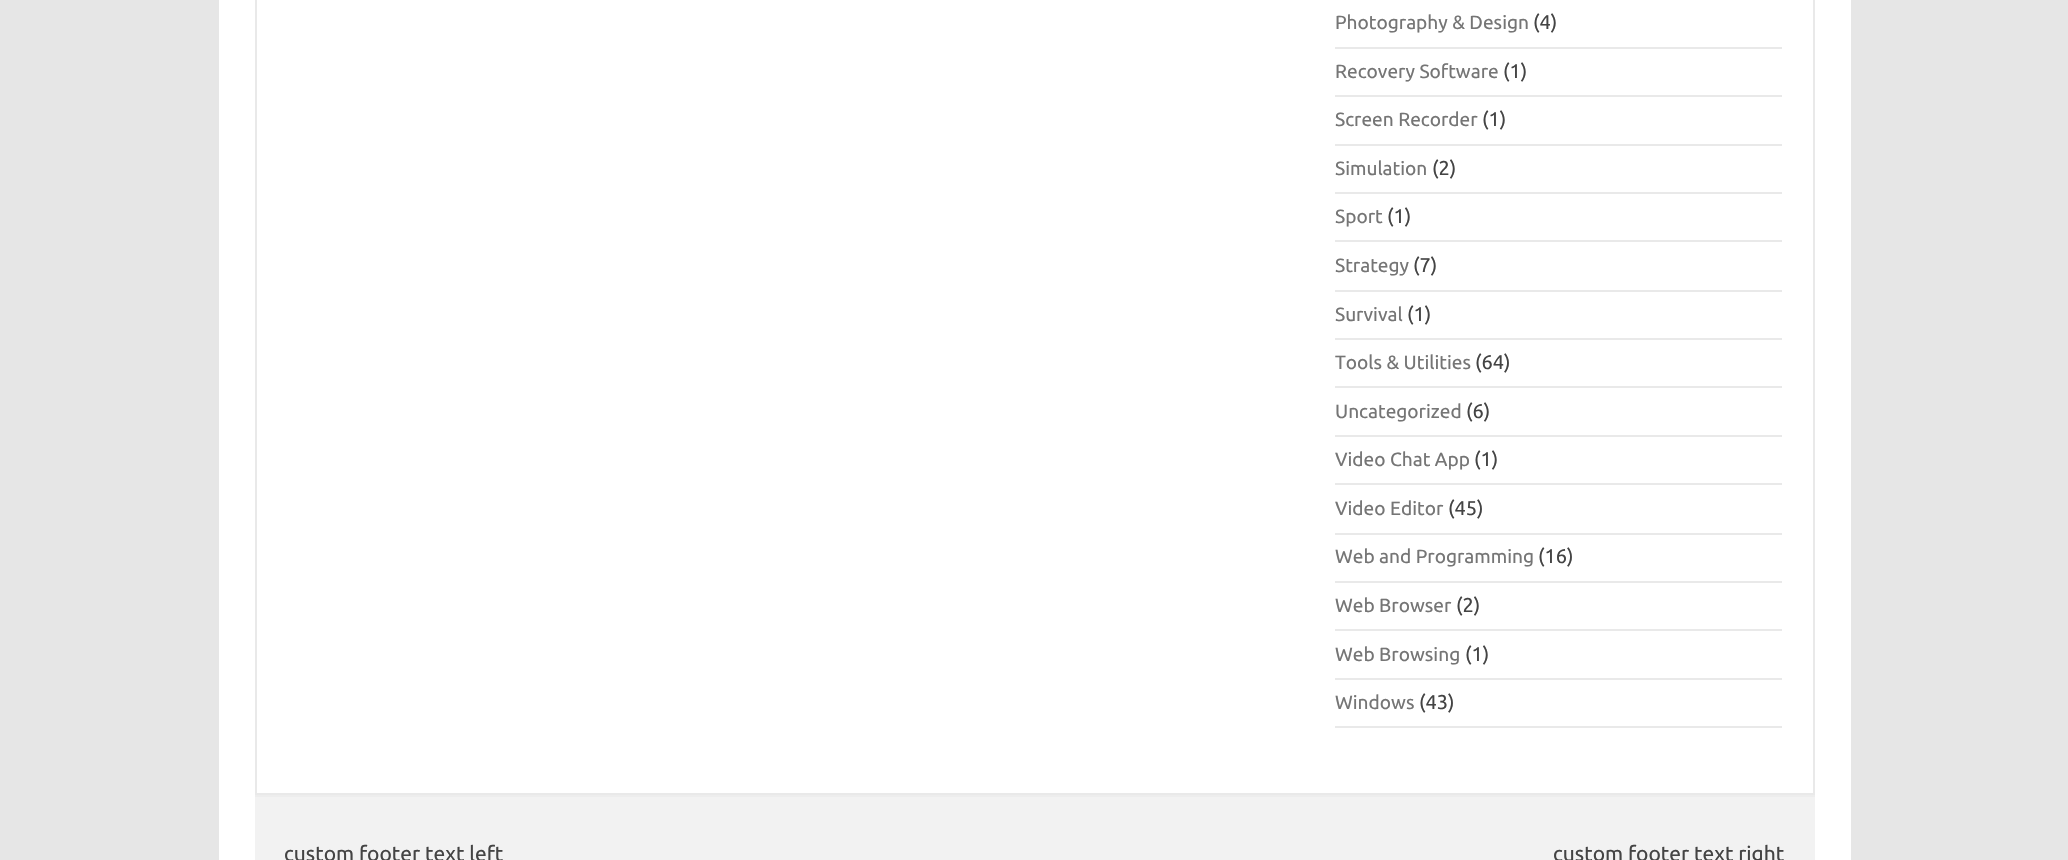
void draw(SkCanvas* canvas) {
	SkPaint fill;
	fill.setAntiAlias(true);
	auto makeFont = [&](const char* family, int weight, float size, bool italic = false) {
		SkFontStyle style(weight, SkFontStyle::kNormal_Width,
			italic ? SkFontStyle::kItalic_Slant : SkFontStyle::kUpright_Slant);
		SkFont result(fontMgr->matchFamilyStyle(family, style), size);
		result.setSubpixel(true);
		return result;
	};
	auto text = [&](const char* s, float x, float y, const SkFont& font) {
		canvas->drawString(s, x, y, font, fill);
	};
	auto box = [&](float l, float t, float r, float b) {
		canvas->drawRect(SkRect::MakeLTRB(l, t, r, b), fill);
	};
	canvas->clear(0xFFE6E6E6);
	fill.setColor(0xFFFFFFFF);
	box(219, 0, 1851, 860);
	fill.setStyle(SkPaint::kStroke_Style);
	fill.setStrokeWidth(2);
	fill.setColor(0xFFE9E9E9);
	canvas->drawRect(SkRect::MakeLTRB(256, -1, 1814, 794), fill);
	fill.setStyle(SkPaint::kFill_Style);
	box(1335, 47, 1782, 49);
	box(1335, 95, 1782, 97);
	box(1335, 144, 1782, 146);
	box(1335, 192, 1782, 194);
	box(1335, 240, 1782, 242);
	box(1335, 290, 1782, 292);
	box(1335, 338, 1782, 340);
	box(1335, 386, 1782, 388);
	box(1335, 435, 1782, 437);
	box(1335, 483, 1782, 485);
	box(1335, 533, 1782, 535);
	box(1335, 581, 1782, 583);
	box(1335, 629, 1782, 631);
	box(1335, 678, 1782, 680);
	box(1335, 726, 1782, 728);
	fill.setColor(0xFFF2F2F2);
	box(255, 797, 1815, 860);
	fill.setColor(0xFFEDEDED);
	box(255, 795, 1815, 797);
	auto font1 = makeFont("Ubuntu", 400, 19.1f);
	fill.setColor(0xFF757575);
	text("Photography & Design", 1335, 29, font1);
	auto font2 = makeFont("Ubuntu", 400, 20);
	fill.setColor(0xFF444444);
	text("(4)", 1533, 29, font2);
	fill.setColor(0xFF757575);
	text("Recovery Software", 1335, 78, font1);
	fill.setColor(0xFF444444);
	text("(1)", 1503, 78, font2);
	fill.setColor(0xFF757575);
	text("Screen Recorder", 1335, 126, font1);
	fill.setColor(0xFF444444);
	text("(1)", 1482, 126, font2);
	fill.setColor(0xFF757575);
	text("Simulation", 1335, 175, font1);
	fill.setColor(0xFF444444);
	text("(2)", 1432, 175, font2);
	fill.setColor(0xFF757575);
	text("Sport", 1335, 223, font1);
	fill.setColor(0xFF444444);
	text("(1)", 1387, 223, font2);
	fill.setColor(0xFF757575);
	text("Strategy", 1335, 272, font1);
	fill.setColor(0xFF444444);
	text("(7)", 1413, 272, font2);
	fill.setColor(0xFF757575);
	text("Survival", 1335, 321, font1);
	fill.setColor(0xFF444444);
	text("(1)", 1407, 321, font2);
	fill.setColor(0xFF757575);
	text("Tools & Utilities", 1335, 369, font1);
	fill.setColor(0xFF444444);
	text("(64)", 1475, 369, font2);
	fill.setColor(0xFF757575);
	text("Uncategorized", 1335, 418, font1);
	fill.setColor(0xFF444444);
	text("(6)", 1466, 418, font2);
	fill.setColor(0xFF757575);
	text("Video Chat App", 1335, 466, font1);
	fill.setColor(0xFF444444);
	text("(1)", 1474, 466, font2);
	fill.setColor(0xFF757575);
	text("Video Editor", 1335, 515, font1);
	fill.setColor(0xFF444444);
	text("(45)", 1448, 515, font2);
	fill.setColor(0xFF757575);
	text("Web and Programming", 1335, 563, font1);
	fill.setColor(0xFF444444);
	text("(16)", 1538, 563, font2);
	fill.setColor(0xFF757575);
	text("Web Browser", 1335, 612, font1);
	fill.setColor(0xFF444444);
	text("(2)", 1456, 612, font2);
	fill.setColor(0xFF757575);
	text("Web Browsing", 1335, 661, font1);
	fill.setColor(0xFF444444);
	text("(1)", 1465, 661, font2);
	fill.setColor(0xFF757575);
	text("Windows", 1335, 709, font1);
	fill.setColor(0xFF444444);
	text("(43)", 1419, 709, font2);
	auto font3 = makeFont("Ubuntu", 400, 21);
	text("custom footer text left", 284, 861, font3);
	text("custom footer text right", 1553, 861, font3);
}
